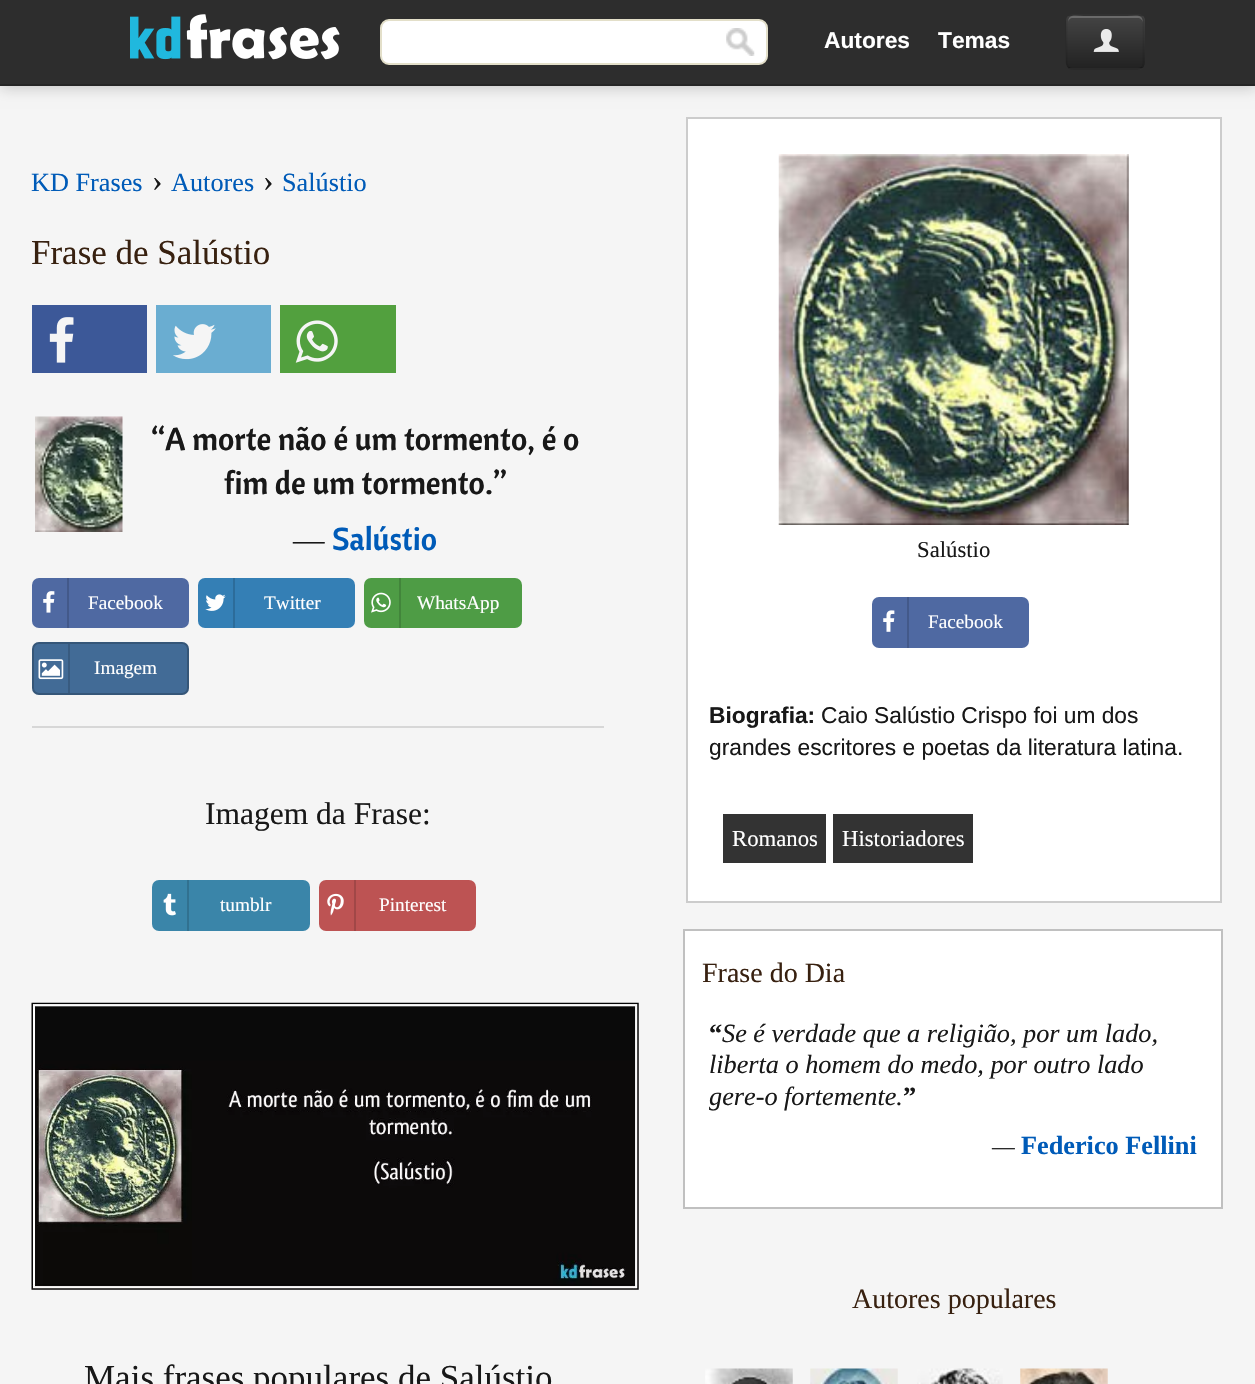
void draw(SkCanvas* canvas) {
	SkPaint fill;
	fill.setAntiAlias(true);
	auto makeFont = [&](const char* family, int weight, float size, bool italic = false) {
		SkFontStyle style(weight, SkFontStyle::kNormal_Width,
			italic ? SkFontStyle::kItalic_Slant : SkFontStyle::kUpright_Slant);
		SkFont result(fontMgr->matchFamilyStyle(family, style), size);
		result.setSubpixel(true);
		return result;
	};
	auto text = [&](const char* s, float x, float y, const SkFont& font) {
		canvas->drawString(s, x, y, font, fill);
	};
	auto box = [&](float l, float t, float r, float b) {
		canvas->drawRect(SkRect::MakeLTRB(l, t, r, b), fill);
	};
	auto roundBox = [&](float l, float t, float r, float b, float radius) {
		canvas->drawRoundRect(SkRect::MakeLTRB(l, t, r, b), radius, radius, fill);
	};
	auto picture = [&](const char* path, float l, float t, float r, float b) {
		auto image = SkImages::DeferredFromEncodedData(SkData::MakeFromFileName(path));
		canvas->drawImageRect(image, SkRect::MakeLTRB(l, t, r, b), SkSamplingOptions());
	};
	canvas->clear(0xFFF5F5F5);
	fill.setColor(0x33000000);
	fill.setMaskFilter(SkMaskFilter::MakeBlur(kNormal_SkBlurStyle, 7));
	canvas->drawRect(SkRect::MakeLTRB(0, -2, 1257, 88), fill);
	fill.setMaskFilter(nullptr);
	fill.setColor(0xFF2D2D2D);
	box(0, 0, 1255, 84);
	fill.setColor(0xFF252525);
	box(0, 84, 1255, 86);
	picture("image0.png", 130, 14, 340, 60);
	fill.setColor(0xFFFFFFFF);
	canvas->drawRoundRect(SkRect::MakeLTRB(381, 20, 767, 64), 8, 8, fill);
	fill.setStyle(SkPaint::kStroke_Style);
	fill.setStrokeWidth(2);
	fill.setColor(0xFFE3DFC9);
	canvas->drawRoundRect(SkRect::MakeLTRB(381, 20, 767, 64), 8, 8, fill);
	picture("image1.png", 726, 28, 755, 56);
	fill.setStyle(SkPaint::kFill_Style);
	fill.setColor(0xFF363636);
	roundBox(1066, 14, 1145, 70, 7);
	canvas->save();
	canvas->clipPath(SkPathBuilder().moveTo(1073, 14).lineTo(1138, 14).cubicTo(1142, 14, 1145, 17, 1145, 21).lineTo(1145, 63).cubicTo(1145, 67, 1142, 70, 1138, 70).lineTo(1073, 70).cubicTo(1069, 70, 1066, 67, 1066, 63).lineTo(1066, 21).cubicTo(1066, 17, 1069, 14, 1073, 14).close().detach(), true);
	{
		const SkColor colors[] = {0xFF444444, 0xFF222222};
		const float stops[] = {0, 1};
		const SkPoint ends[] = {{1105, 16}, {1105, 68}};
		fill.setShader(SkGradientShader::MakeLinear(ends, colors, stops, 2, SkTileMode::kClamp));
		fill.setAlpha(255);
	}
	box(1066, 16, 1145, 68);
	canvas->restore();
	fill.setShader(nullptr);
	fill.setColor(0x33FFFFFF);
	canvas->drawPath(SkPathBuilder().moveTo(1073, 18).lineTo(1138, 18).cubicTo(1140, 18, 1143, 20, 1143, 23).cubicTo(1143, 13, 1135, 16, 1127, 16).lineTo(1084, 16).cubicTo(1076, 16, 1068, 13, 1068, 23).cubicTo(1068, 20, 1070, 18, 1073, 18).close().detach(), fill);
	fill.setStyle(SkPaint::kStroke_Style);
	fill.setStrokeWidth(1.8f);
	fill.setColor(0x40000000);
	canvas->drawPath(SkPathBuilder().moveTo(1142, 67.5f).cubicTo(1140.5f, 68.5f, 1139, 69, 1137.5f, 69).lineTo(1073, 69).cubicTo(1071, 69, 1069.5f, 68.5f, 1068.5f, 67.5f).detach(), fill);
	fill.setColor(0x1A000000);
	canvas->drawPath(SkPathBuilder().moveTo(1068.5f, 67.5f).cubicTo(1067.5f, 66, 1066.5f, 64.5f, 1066.5f, 63).lineTo(1066.5f, 21).cubicTo(1066.5f, 19.5f, 1067.5f, 18, 1068.5f, 16.5f).cubicTo(1069.5f, 15.5f, 1071, 15, 1073, 15).lineTo(1137.5f, 15).cubicTo(1139, 15, 1140.5f, 15.5f, 1142, 16.5f).cubicTo(1143, 18, 1143.5f, 19.5f, 1143.5f, 21).lineTo(1143.5f, 63).cubicTo(1143.5f, 64.5f, 1143, 66, 1142, 67.5f).detach(), fill);
	picture("image2.png", 1093, 29, 1119, 52);
	fill.setStyle(SkPaint::kFill_Style);
	fill.setColor(0xFF3C5898);
	box(32, 305, 147, 373);
	picture("image3.png", 49, 317, 74, 363);
	fill.setColor(0xFF6AADD1);
	box(156, 305, 271, 373);
	picture("image4.png", 173, 324, 216, 360);
	fill.setColor(0xFF52A03E);
	box(280, 305, 396, 373);
	picture("image5.png", 295, 320, 338, 363);
	fill.setColor(0xFFD7D7D7);
	box(32, 726, 604, 728);
	picture("image6.png", 35, 416, 123, 532);
	fill.setColor(0xFF4F69A2);
	roundBox(32, 578, 189, 628, 7);
	fill.setColor(0xFF43598A);
	box(67, 578, 69, 628);
	picture("image7.png", 43, 591, 55, 613);
	fill.setColor(0xFF347FB5);
	roundBox(198, 578, 355, 628, 7);
	fill.setColor(0xFF2C6C9A);
	box(233, 578, 235, 628);
	picture("image8.png", 205, 594, 226, 611);
	fill.setColor(0xFF4E9C45);
	roundBox(364, 578, 522, 628, 7);
	fill.setColor(0xFF42853B);
	box(399, 578, 401, 628);
	picture("image9.png", 371, 592, 391, 613);
	fill.setColor(0xFF426B96);
	roundBox(32, 642, 189, 695, 7);
	fill.setStyle(SkPaint::kStroke_Style);
	fill.setStrokeWidth(2);
	fill.setColor(0x33000000);
	canvas->drawRoundRect(SkRect::MakeLTRB(33, 643, 188, 694), 6, 6, fill);
	fill.setStyle(SkPaint::kFill_Style);
	fill.setColor(0xFF385B80);
	box(68, 644, 70, 693);
	picture("image10.png", 38, 659, 64, 680);
	fill.setColor(0xFF3A85A9);
	roundBox(152, 880, 310, 931, 7);
	fill.setColor(0xFF317190);
	box(187, 880, 189, 931);
	picture("image11.png", 163, 893, 176, 916);
	fill.setColor(0xFFBD5353);
	roundBox(319, 880, 476, 931, 7);
	fill.setColor(0xFFA14747);
	box(354, 880, 356, 931);
	picture("image12.png", 327, 893, 344, 916);
	picture("image13.png", 31, 1002, 639, 1290);
	fill.setColor(0xFFFFFFFF);
	canvas->drawRect(SkRect::MakeLTRB(687, 118, 1221, 902), fill);
	fill.setStyle(SkPaint::kStroke_Style);
	fill.setColor(0xFFCCCCCC);
	canvas->drawRect(SkRect::MakeLTRB(687, 118, 1221, 902), fill);
	picture("image14.png", 778, 154, 1129, 525);
	fill.setStyle(SkPaint::kFill_Style);
	fill.setColor(0xFF4F69A2);
	roundBox(872, 597, 1029, 648, 7);
	fill.setColor(0xFF43598A);
	box(907, 597, 909, 648);
	picture("image15.png", 883, 610, 895, 632);
	fill.setColor(0xFF333333);
	box(723, 814, 826, 863);
	box(833, 814, 973, 863);
	fill.setColor(0xFFFFFFFF);
	canvas->drawRect(SkRect::MakeLTRB(684, 930, 1222, 1208), fill);
	fill.setStyle(SkPaint::kStroke_Style);
	fill.setColor(0xFFC0C0C0);
	canvas->drawRect(SkRect::MakeLTRB(684, 930, 1222, 1208), fill);
	picture("image16.png", 705, 1368, 793, 1384);
	picture("image17.png", 810, 1368, 898, 1384);
	picture("image18.png", 917, 1368, 1003, 1384);
	picture("image19.png", 1020, 1368, 1108, 1384);
	auto font1 = makeFont("Liberation Sans", 700, 22.75f);
	fill.setStyle(SkPaint::kFill_Style);
	fill.setColor(0xFFFFFFFF);
	text("Autores", 824, 48, font1);
	text("Temas", 938, 48, font1);
	auto font2 = makeFont("Liberation Serif", 400, 26.25f);
	fill.setColor(0xFF005BB8);
	text("KD Frases", 31, 191, font2);
	auto font3 = makeFont("Liberation Serif", 400, 31.5f);
	fill.setColor(0xFF181818);
	text("›", 152, 191, font3);
	fill.setColor(0xFF005BB8);
	text("Autores", 171, 191, font2);
	fill.setColor(0xFF181818);
	text("›", 263, 191, font3);
	fill.setColor(0xFF005BB8);
	text("Salústio", 282, 191, font2);
	auto font4 = makeFont("Liberation Serif", 400, 35);
	fill.setColor(0xFF382110);
	text("Frase de Salústio", 31, 264, font4);
	auto font5 = makeFont("Cantora One", 400, 31.5f);
	fill.setColor(0xFF181818);
	text("“A morte não é um tormento, é o", 151, 450, font5);
	text("fim de um tormento.”", 224, 494, font5);
	text("―", 293, 550, font3);
	fill.setColor(0xFF005BB8);
	text("Salústio", 332, 550, font5);
	auto font6 = makeFont("Liberation Serif", 400, 19.25f);
	fill.setColor(0xFFFFFFFF);
	text("Facebook", 88, 609, font6);
	text("Twitter", 264, 609, font6);
	text("WhatsApp", 417, 609, font6);
	text("Imagem", 94, 674, font6);
	fill.setColor(0xFF181818);
	text("Imagem da Frase:", 205, 824, font3);
	fill.setColor(0xFFFFFFFF);
	text("tumblr", 220, 911, font6);
	text("Pinterest", 379, 911, font6);
	fill.setColor(0xFF181818);
	text("Mais frases populares de Salústio", 84, 1389, font4);
	auto font7 = makeFont("Liberation Serif", 400, 22.75f);
	text("Salústio", 917, 557, font7);
	fill.setColor(0xFFFFFFFF);
	text("Facebook", 928, 628, font6);
	fill.setColor(0xFF181818);
	text("Biografia:", 709, 723, font1);
	auto font8 = makeFont("Liberation Sans", 400, 22.75f);
	text("Caio Salústio Crispo foi um dos", 821, 723, font8);
	text("grandes escritores e poetas da literatura latina.", 709, 755, font8);
	fill.setColor(0xFFFFFFFF);
	text("Romanos", 732, 846, font7);
	text("Historiadores", 842, 846, font7);
	auto font9 = makeFont("Liberation Serif", 400, 28);
	fill.setColor(0xFF382110);
	text("Frase do Dia", 702, 982, font9);
	auto font10 = makeFont("Liberation Serif", 700, 26.25f);
	fill.setColor(0xFF181818);
	text("“", 709, 1042, font10);
	auto font11 = makeFont("Liberation Serif", 400, 26.25f, true);
	text("Se é verdade que a religião, por um lado,", 722, 1042, font11);
	text("liberta o homem do medo, por outro lado", 709, 1073, font11);
	text("gere-o fortemente.", 709, 1105, font11);
	text("”", 903, 1105, font10);
	text("—", 992, 1154, font7);
	fill.setColor(0xFF005BB8);
	text("Federico Fellini", 1021, 1154, font10);
	fill.setColor(0xFF382110);
	text("Autores populares", 852, 1308, font9);
}
